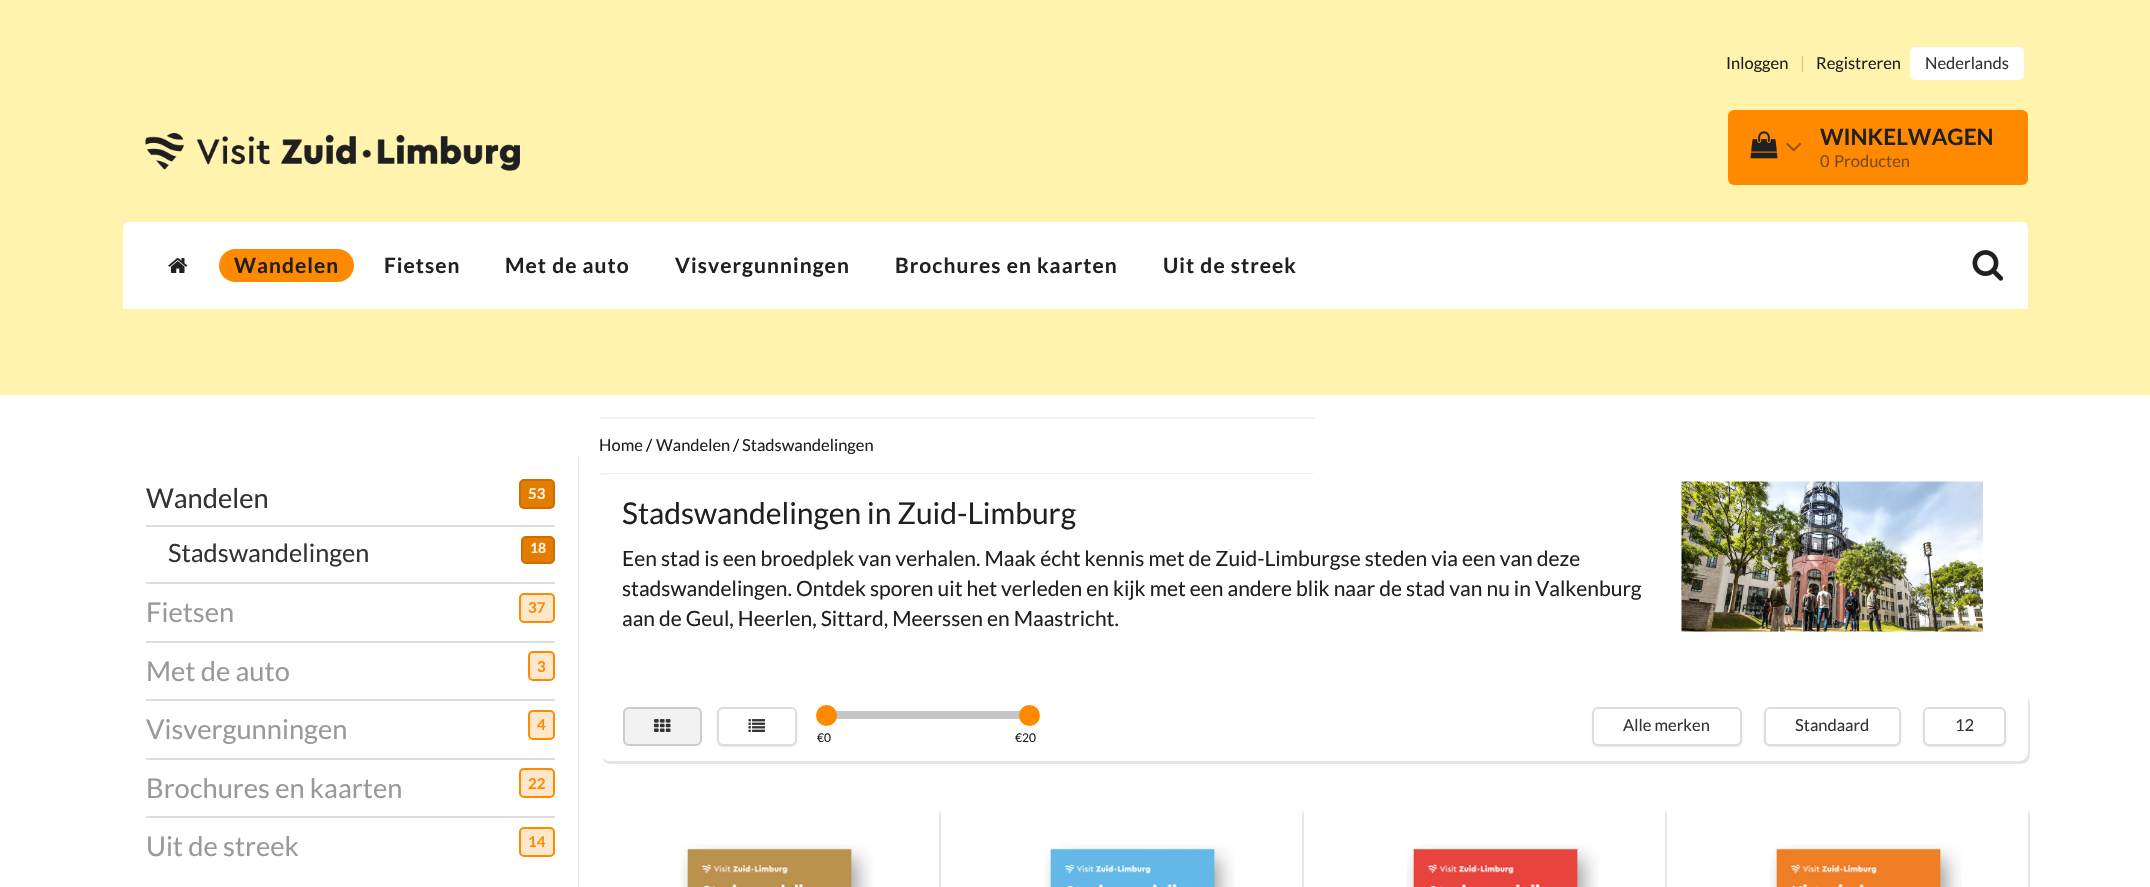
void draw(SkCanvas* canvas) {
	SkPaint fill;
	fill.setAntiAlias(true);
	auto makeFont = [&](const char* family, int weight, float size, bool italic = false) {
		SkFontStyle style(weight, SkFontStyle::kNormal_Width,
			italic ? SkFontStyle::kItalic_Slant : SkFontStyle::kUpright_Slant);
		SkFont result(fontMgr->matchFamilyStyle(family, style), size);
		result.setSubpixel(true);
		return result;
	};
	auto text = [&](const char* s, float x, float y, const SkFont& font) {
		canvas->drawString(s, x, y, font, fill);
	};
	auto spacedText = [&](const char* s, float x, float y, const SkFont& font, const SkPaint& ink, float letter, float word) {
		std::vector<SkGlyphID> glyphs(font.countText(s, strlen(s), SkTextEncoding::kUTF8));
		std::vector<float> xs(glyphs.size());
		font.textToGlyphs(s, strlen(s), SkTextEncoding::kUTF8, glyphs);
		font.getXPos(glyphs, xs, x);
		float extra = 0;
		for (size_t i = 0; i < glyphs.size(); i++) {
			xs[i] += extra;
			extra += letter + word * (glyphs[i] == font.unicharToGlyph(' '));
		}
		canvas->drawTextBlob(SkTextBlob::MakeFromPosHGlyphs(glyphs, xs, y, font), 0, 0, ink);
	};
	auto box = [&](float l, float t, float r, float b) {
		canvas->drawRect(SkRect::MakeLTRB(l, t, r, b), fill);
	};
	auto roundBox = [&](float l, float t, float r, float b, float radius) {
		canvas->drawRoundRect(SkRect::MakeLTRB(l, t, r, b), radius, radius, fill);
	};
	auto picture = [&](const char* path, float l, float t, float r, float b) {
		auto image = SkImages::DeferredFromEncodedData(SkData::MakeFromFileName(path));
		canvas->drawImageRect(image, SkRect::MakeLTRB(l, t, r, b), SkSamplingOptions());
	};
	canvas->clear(0xFFFFFFFF);
	fill.setColor(0xFFFFF3AE);
	box(0, 0, 2150, 395);
	picture("image0.png", 145, 133, 520, 171);
	fill.setColor(0xFFFFFFFF);
	roundBox(1910, 47, 2024, 80, 5);
	fill.setColor(0xFFFF8A00);
	roundBox(1728, 110, 2028, 185, 6);
	picture("image1.png", 1750, 131, 1778, 159);
	picture("image2.png", 1786, 142, 1802, 152);
	fill.setColor(0xFFFFFFFF);
	canvas->drawPath(SkPathBuilder().moveTo(129, 222).lineTo(2022, 222).cubicTo(2025.5f, 222, 2028, 224.5f, 2028, 228).lineTo(2028, 309).lineTo(123, 309).lineTo(123, 228).cubicTo(123, 224.5f, 125.5f, 222, 129, 222).close().detach(), fill);
	picture("image3.png", 168, 258, 188, 273);
	fill.setColor(0xFFFF8A00);
	roundBox(219, 249, 354, 282, 16.5f);
	picture("image4.png", 1972, 250, 2004, 281);
	fill.setColor(0xFFE5E5E5);
	canvas->drawPath(SkPathBuilder().moveTo(126, 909).cubicTo(127, 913, 130, 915, 134, 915).lineTo(570, 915).cubicTo(575, 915, 579, 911, 579, 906).lineTo(579, 459).cubicTo(579, 457, 578, 455, 577, 454).lineTo(578, 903).cubicTo(578, 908, 573, 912, 568, 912).lineTo(132, 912).cubicTo(130, 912, 127, 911, 126, 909).close().detach(), fill);
	fill.setColor(0xFFFFFFFF);
	roundBox(123, 447, 578, 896, 9);
	fill.setColor(0xFFE57C00);
	canvas->drawRoundRect(SkRect::MakeLTRB(520, 480, 554, 508), 4, 4, fill);
	fill.setStyle(SkPaint::kStroke_Style);
	fill.setStrokeWidth(2);
	fill.setColor(0xFFCC6E00);
	canvas->drawRoundRect(SkRect::MakeLTRB(520, 480, 554, 508), 4, 4, fill);
	fill.setStyle(SkPaint::kFill_Style);
	fill.setColor(0xFFDDDDDD);
	box(146, 525, 555, 527);
	fill.setColor(0xFFE57C00);
	canvas->drawRoundRect(SkRect::MakeLTRB(522, 537, 554, 563), 4, 4, fill);
	fill.setStyle(SkPaint::kStroke_Style);
	fill.setColor(0xFFCC6E00);
	canvas->drawRoundRect(SkRect::MakeLTRB(522, 537, 554, 563), 4, 4, fill);
	fill.setStyle(SkPaint::kFill_Style);
	fill.setColor(0xFFDDDDDD);
	box(146, 582, 555, 584);
	fill.setColor(0xFFFFE7CC);
	canvas->drawRoundRect(SkRect::MakeLTRB(520, 594, 554, 622), 4, 4, fill);
	fill.setStyle(SkPaint::kStroke_Style);
	fill.setColor(0xFFFF8A00);
	canvas->drawRoundRect(SkRect::MakeLTRB(520, 594, 554, 622), 4, 4, fill);
	fill.setStyle(SkPaint::kFill_Style);
	fill.setColor(0xFFDDDDDD);
	box(146, 641, 555, 643);
	fill.setColor(0xFFFFE7CC);
	canvas->drawRoundRect(SkRect::MakeLTRB(529, 652, 554, 680), 4, 4, fill);
	fill.setStyle(SkPaint::kStroke_Style);
	fill.setColor(0xFFFF8A00);
	canvas->drawRoundRect(SkRect::MakeLTRB(529, 652, 554, 680), 4, 4, fill);
	fill.setStyle(SkPaint::kFill_Style);
	fill.setColor(0xFFDDDDDD);
	box(146, 699, 555, 701);
	fill.setColor(0xFFFFE7CC);
	canvas->drawRoundRect(SkRect::MakeLTRB(529, 711, 554, 739), 4, 4, fill);
	fill.setStyle(SkPaint::kStroke_Style);
	fill.setColor(0xFFFF8A00);
	canvas->drawRoundRect(SkRect::MakeLTRB(529, 711, 554, 739), 4, 4, fill);
	fill.setStyle(SkPaint::kFill_Style);
	fill.setColor(0xFFDDDDDD);
	box(146, 758, 555, 760);
	fill.setColor(0xFFFFE7CC);
	canvas->drawRoundRect(SkRect::MakeLTRB(520, 769, 554, 797), 4, 4, fill);
	fill.setStyle(SkPaint::kStroke_Style);
	fill.setColor(0xFFFF8A00);
	canvas->drawRoundRect(SkRect::MakeLTRB(520, 769, 554, 797), 4, 4, fill);
	fill.setStyle(SkPaint::kFill_Style);
	fill.setColor(0xFFDDDDDD);
	box(146, 816, 555, 818);
	fill.setColor(0xFFFFE7CC);
	canvas->drawRoundRect(SkRect::MakeLTRB(520, 828, 554, 856), 4, 4, fill);
	fill.setStyle(SkPaint::kStroke_Style);
	fill.setColor(0xFFFF8A00);
	canvas->drawRoundRect(SkRect::MakeLTRB(520, 828, 554, 856), 4, 4, fill);
	fill.setStyle(SkPaint::kFill_Style);
	fill.setColor(0xFFF2F2F2);
	box(600, 417, 1314, 419);
	box(600, 473, 1314, 475);
	fill.setColor(0xFFFFFFFF);
	roundBox(600, 474, 2028, 662, 9);
	picture("image5.png", 1681, 481, 1983, 632);
	fill.setColor(0xFFE5E5E5);
	canvas->drawPath(SkPathBuilder().moveTo(602, 758).cubicTo(603, 761, 607, 764, 611, 764).lineTo(2021, 764).cubicTo(2026, 764, 2030, 760, 2030, 755).lineTo(2030, 704).cubicTo(2030, 702, 2029, 700, 2028, 698).lineTo(2028, 700).lineTo(2028, 752).cubicTo(2028, 756, 2024, 760, 2019, 760).lineTo(609, 760).cubicTo(606, 760, 604, 759, 602, 758).close().detach(), fill);
	fill.setColor(0xFFFFFFFF);
	roundBox(600, 692, 2028, 761, 9);
	fill.setColor(0x1A221919);
	fill.setMaskFilter(SkMaskFilter::MakeBlur(kNormal_SkBlurStyle, 1));
	canvas->drawRoundRect(SkRect::MakeLTRB(1592, 708, 1742, 747), 6, 6, fill);
	fill.setMaskFilter(nullptr);
	fill.setColor(0xFFFFFFFF);
	canvas->drawRoundRect(SkRect::MakeLTRB(1593, 708, 1741, 745), 5, 5, fill);
	fill.setStyle(SkPaint::kStroke_Style);
	fill.setColor(0xFFDDDDDD);
	canvas->drawRoundRect(SkRect::MakeLTRB(1593, 708, 1741, 745), 5, 5, fill);
	fill.setStyle(SkPaint::kFill_Style);
	fill.setColor(0x1A221919);
	fill.setMaskFilter(SkMaskFilter::MakeBlur(kNormal_SkBlurStyle, 1));
	canvas->drawRoundRect(SkRect::MakeLTRB(1764, 708, 1901, 747), 6, 6, fill);
	fill.setMaskFilter(nullptr);
	fill.setColor(0xFFFFFFFF);
	canvas->drawRoundRect(SkRect::MakeLTRB(1765, 708, 1900, 745), 5, 5, fill);
	fill.setStyle(SkPaint::kStroke_Style);
	fill.setColor(0xFFDDDDDD);
	canvas->drawRoundRect(SkRect::MakeLTRB(1765, 708, 1900, 745), 5, 5, fill);
	fill.setStyle(SkPaint::kFill_Style);
	fill.setColor(0x1A221919);
	fill.setMaskFilter(SkMaskFilter::MakeBlur(kNormal_SkBlurStyle, 1));
	canvas->drawRoundRect(SkRect::MakeLTRB(1923, 708, 2006, 747), 6, 6, fill);
	fill.setMaskFilter(nullptr);
	fill.setColor(0xFFFFFFFF);
	canvas->drawRoundRect(SkRect::MakeLTRB(1924, 708, 2005, 745), 5, 5, fill);
	fill.setStyle(SkPaint::kStroke_Style);
	fill.setColor(0xFFDDDDDD);
	canvas->drawRoundRect(SkRect::MakeLTRB(1924, 708, 2005, 745), 5, 5, fill);
	fill.setStyle(SkPaint::kFill_Style);
	fill.setColor(0xFFF2F2F2);
	canvas->drawRoundRect(SkRect::MakeLTRB(624, 708, 701, 745), 5, 5, fill);
	fill.setStyle(SkPaint::kStroke_Style);
	fill.setColor(0xFFCCCCCC);
	canvas->drawRoundRect(SkRect::MakeLTRB(624, 708, 701, 745), 5, 5, fill);
	picture("image6.png", 654, 719, 671, 732);
	fill.setStyle(SkPaint::kFill_Style);
	fill.setColor(0x1A221919);
	fill.setMaskFilter(SkMaskFilter::MakeBlur(kNormal_SkBlurStyle, 1));
	canvas->drawRoundRect(SkRect::MakeLTRB(717, 708, 797, 747), 6, 6, fill);
	fill.setMaskFilter(nullptr);
	fill.setColor(0xFFFFFFFF);
	canvas->drawRoundRect(SkRect::MakeLTRB(718, 708, 796, 745), 5, 5, fill);
	fill.setStyle(SkPaint::kStroke_Style);
	fill.setColor(0xFFDDDDDD);
	canvas->drawRoundRect(SkRect::MakeLTRB(718, 708, 796, 745), 5, 5, fill);
	picture("image7.png", 748, 719, 765, 732);
	fill.setStyle(SkPaint::kFill_Style);
	fill.setColor(0xFFC6C6C6);
	box(836, 711, 1025, 719);
	fill.setColor(0xFFFF8A00);
	canvas->drawCircle(826.5f, 715.5f, 10.5f, fill);
	canvas->drawCircle(1029.5f, 715.5f, 10.5f, fill);
	fill.setColor(0xFFE5E5E5);
	canvas->drawPath(SkPathBuilder().moveTo(602, 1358).cubicTo(603, 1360, 605, 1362, 608, 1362).lineTo(935, 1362).cubicTo(938, 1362, 941, 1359, 941, 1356).lineTo(941, 815).cubicTo(941, 813, 940, 812, 939, 810).lineTo(939, 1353).cubicTo(939, 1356, 936, 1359, 933, 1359).lineTo(606, 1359).cubicTo(605, 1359, 603, 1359, 602, 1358).close().detach(), fill);
	picture("image8.png", 680, 844, 873, 887);
	canvas->drawPath(SkPathBuilder().moveTo(963, 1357).cubicTo(964, 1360, 966, 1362, 969, 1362).lineTo(1298, 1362).cubicTo(1301, 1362, 1304, 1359, 1304, 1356).lineTo(1304, 815).cubicTo(1304, 813, 1303, 812, 1302, 810).lineTo(1302, 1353).cubicTo(1302, 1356, 1299, 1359, 1296, 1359).lineTo(968, 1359).cubicTo(966, 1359, 964, 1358, 963, 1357).close().detach(), fill);
	picture("image9.png", 1044, 844, 1235, 887);
	canvas->drawPath(SkPathBuilder().moveTo(1326, 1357).cubicTo(1327, 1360, 1329, 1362, 1332, 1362).lineTo(1661, 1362).cubicTo(1664, 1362, 1667, 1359, 1667, 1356).lineTo(1667, 815).cubicTo(1667, 813, 1666, 812, 1665, 810).lineTo(1665, 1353).cubicTo(1665, 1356, 1662, 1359, 1659, 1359).lineTo(1330, 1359).cubicTo(1329, 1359, 1327, 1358, 1326, 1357).close().detach(), fill);
	picture("image10.png", 1406, 844, 1599, 887);
	canvas->drawPath(SkPathBuilder().moveTo(1689, 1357).cubicTo(1690, 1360, 1692, 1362, 1695, 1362).lineTo(2024, 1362).cubicTo(2027, 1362, 2030, 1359, 2030, 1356).lineTo(2030, 815).cubicTo(2030, 813, 2029, 812, 2028, 810).lineTo(2028, 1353).cubicTo(2028, 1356, 2025, 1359, 2022, 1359).lineTo(1694, 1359).cubicTo(1692, 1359, 1690, 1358, 1689, 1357).close().detach(), fill);
	picture("image11.png", 1770, 844, 1962, 887);
	auto font1 = makeFont("Lato", 400, 16.5f);
	fill.setColor(0xFF202020);
	text("Inloggen", 1726, 69, font1);
	fill.setColor(0xFFD2C992);
	text("|", 1800, 69, font1);
	fill.setColor(0xFF202020);
	text("Registreren", 1816, 69, font1);
	fill.setColor(0xFF333333);
	text("Nederlands", 1925, 69, font1);
	auto font2 = makeFont("Lato", 700, 22.5f);
	fill.setColor(0xFF202020);
	text("WINKELWAGEN", 1820, 145, font2);
	fill.setColor(0xFF794A13);
	text("0", 1820, 167, font1);
	text("Producten", 1834, 167, font1);
	auto font3 = makeFont("Lato", 700, 21);
	fill.setColor(0xFF202020);
	spacedText("Wandelen", 234, 273, font3, fill, 1.05f, 0);
	spacedText("Fietsen", 384, 273, font3, fill, 1.05f, 0);
	spacedText("Met de auto", 505, 273, font3, fill, 1.05f, 0);
	spacedText("Visvergunningen", 675, 273, font3, fill, 1.05f, 0);
	spacedText("Brochures en kaarten", 895, 273, font3, fill, 1.05f, 0);
	spacedText("Uit de streek", 1163, 273, font3, fill, 1.05f, 0);
	auto font4 = makeFont("Lato", 400, 27.25f);
	fill.setColor(0xFF333333);
	text("Wandelen", 146, 508, font4);
	auto font5 = makeFont("Lato", 700, 15);
	fill.setColor(0xFFFFF3E5);
	text("53", 528, 499, font5);
	auto font6 = makeFont("Lato", 400, 25.25f);
	fill.setColor(0xFF333333);
	text("Stadswandelingen", 168, 562, font6);
	auto font7 = makeFont("Lato", 700, 14);
	fill.setColor(0xFFFFF3E5);
	text("18", 530, 553, font7);
	fill.setColor(0xFF999999);
	text("Fietsen", 146, 622, font4);
	fill.setColor(0xFFFF8A00);
	text("37", 528, 613, font5);
	fill.setColor(0xFF999999);
	text("Met de auto", 146, 681, font4);
	fill.setColor(0xFFFF8A00);
	text("3", 537, 672, font5);
	fill.setColor(0xFF999999);
	text("Visvergunningen", 146, 739, font4);
	fill.setColor(0xFFFF8A00);
	text("4", 537, 730, font5);
	fill.setColor(0xFF999999);
	text("Brochures en kaarten", 146, 798, font4);
	fill.setColor(0xFFFF8A00);
	text("22", 528, 789, font5);
	fill.setColor(0xFF999999);
	text("Uit de streek", 146, 856, font4);
	fill.setColor(0xFFFF8A00);
	text("14", 528, 847, font5);
	fill.setColor(0xFF202020);
	text("Home", 599, 451, font1);
	fill.setColor(0xFF000000);
	text("/", 646, 451, font1);
	fill.setColor(0xFF202020);
	text("Wandelen", 656, 451, font1);
	fill.setColor(0xFF000000);
	text("/", 733, 451, font1);
	fill.setColor(0xFF202020);
	text("Stadswandelingen", 742, 451, font1);
	auto font8 = makeFont("Lato", 400, 30);
	text("Stadswandelingen in Zuid-Limburg", 622, 524, font8);
	auto font9 = makeFont("Lato", 400, 21);
	text("Een stad is een broedplek van verhalen. Maak écht kennis met de Zuid-Limburgse steden via een van deze", 622, 566, font9);
	text("stadswandelingen. Ontdek sporen uit het verleden en kijk met een andere blik naar de stad van nu in Valkenburg", 622, 596, font9);
	text("aan de Geul, Heerlen, Sittard, Meerssen en Maastricht.", 622, 626, font9);
	fill.setColor(0xFF333333);
	text("Alle merken", 1623, 731, font1);
	text("Standaard", 1795, 731, font1);
	text("12", 1955, 731, font1);
	auto font10 = makeFont("Lato", 400, 12);
	fill.setColor(0xFF202020);
	text("€0", 817, 742, font10);
	text("€20", 1015, 742, font10);
}
